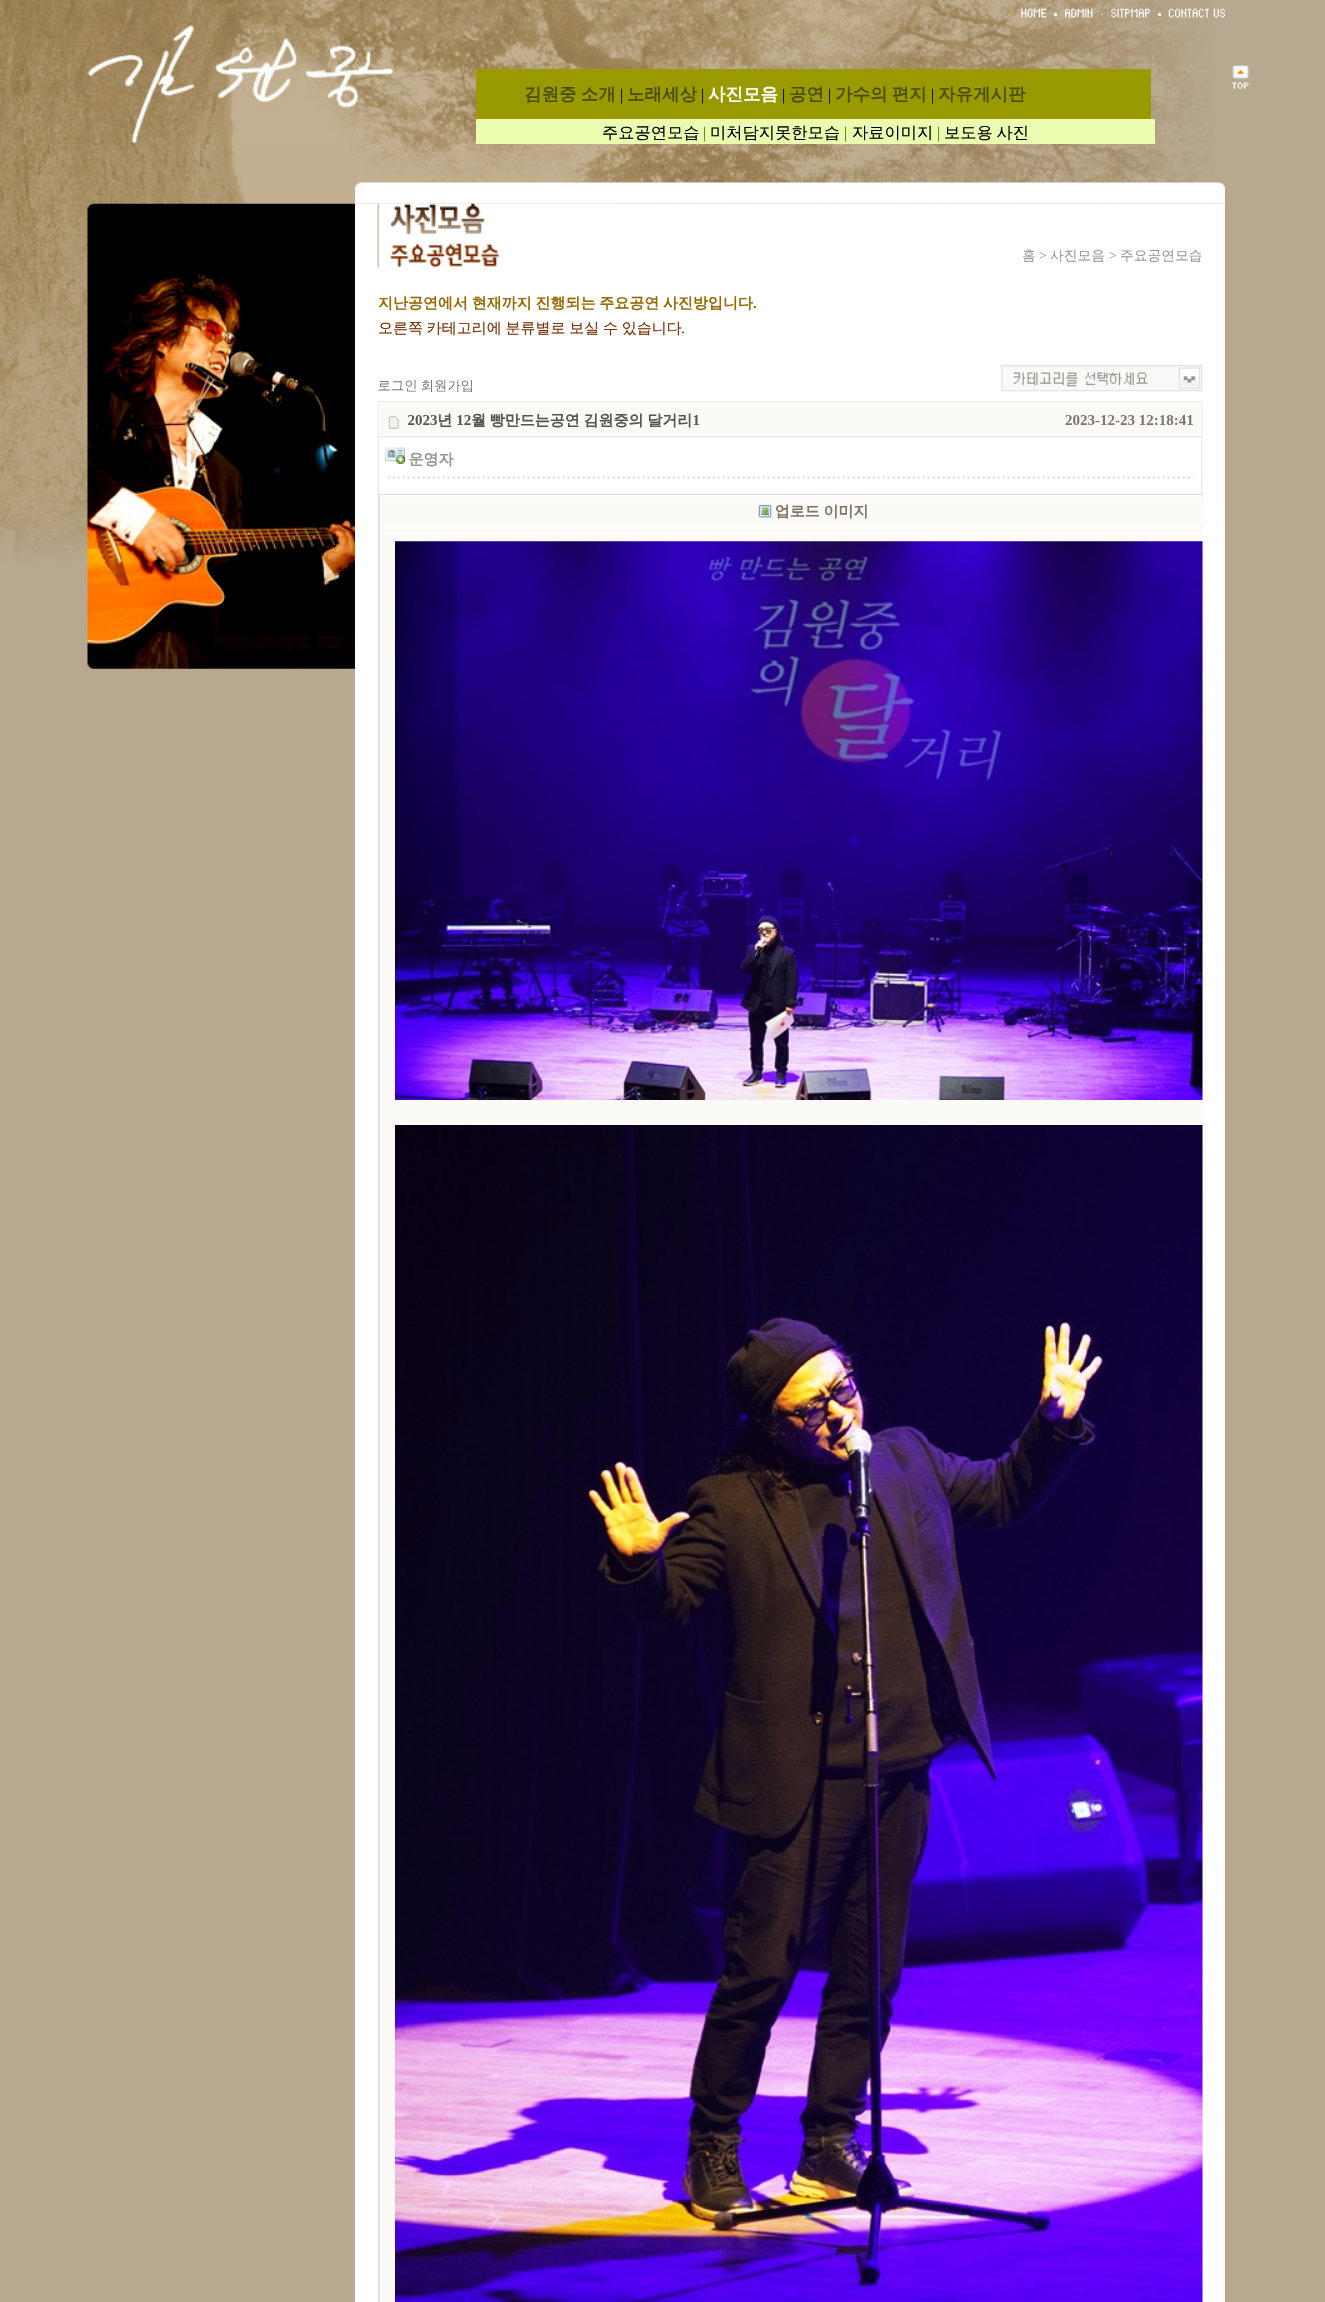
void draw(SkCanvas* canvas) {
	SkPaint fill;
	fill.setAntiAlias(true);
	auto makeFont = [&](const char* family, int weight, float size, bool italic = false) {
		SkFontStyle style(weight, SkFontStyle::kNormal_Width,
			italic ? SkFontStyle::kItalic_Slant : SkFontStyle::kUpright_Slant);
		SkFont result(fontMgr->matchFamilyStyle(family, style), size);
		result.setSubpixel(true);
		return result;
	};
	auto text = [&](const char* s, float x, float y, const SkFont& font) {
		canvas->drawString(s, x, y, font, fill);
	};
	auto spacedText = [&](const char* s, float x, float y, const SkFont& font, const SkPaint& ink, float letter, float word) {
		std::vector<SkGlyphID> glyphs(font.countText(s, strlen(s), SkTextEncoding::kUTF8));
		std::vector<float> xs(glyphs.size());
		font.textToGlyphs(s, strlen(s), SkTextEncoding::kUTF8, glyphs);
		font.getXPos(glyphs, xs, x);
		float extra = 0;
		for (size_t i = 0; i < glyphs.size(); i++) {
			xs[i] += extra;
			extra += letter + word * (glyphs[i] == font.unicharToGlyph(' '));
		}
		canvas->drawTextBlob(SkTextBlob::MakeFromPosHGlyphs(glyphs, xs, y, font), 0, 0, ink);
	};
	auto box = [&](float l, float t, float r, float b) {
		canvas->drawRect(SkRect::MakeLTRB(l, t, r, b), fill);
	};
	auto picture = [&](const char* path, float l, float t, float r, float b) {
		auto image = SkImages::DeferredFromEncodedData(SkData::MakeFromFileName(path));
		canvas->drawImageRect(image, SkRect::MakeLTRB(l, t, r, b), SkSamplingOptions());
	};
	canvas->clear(0xFFB7A88F);
	picture("image0.png", 0, 0, 1214, 562);
	picture("image1.png", 1232, 65, 1249, 89);
	picture("image2.png", 87, 0, 477, 143);
	picture("image3.png", 1021, 8, 1047, 18);
	fill.setColor(0xD1FFFFFF);
	box(1054, 13, 1057, 16);
	picture("image4.png", 1065, 8, 1093, 18);
	picture("image5.png", 1101, 13, 1103, 16);
	picture("image6.png", 1111, 8, 1150, 18);
	fill.setColor(0xE0FFFFFF);
	box(1158, 13, 1161, 16);
	picture("image7.png", 1168, 8, 1225, 18);
	fill.setColor(0xFF999900);
	box(476, 69, 1151, 119);
	fill.setColor(0xFFE9FCAF);
	box(476, 119, 1155, 144);
	picture("image8.png", 87, 203, 355, 669);
	picture("image9.png", 355, 182, 1225, 204);
	fill.setColor(0xFFFFFFFF);
	box(355, 204, 1225, 2302);
	picture("image10.png", 377, 203, 390, 268);
	picture("image11.png", 390, 203, 802, 235);
	picture("image12.png", 390, 243, 499, 268);
	picture("image13.png", 377, 365, 1203, 2302);
	auto font1 = makeFont("WenQuanYi Zen Hei", 700, 17.5f);
	fill.setColor(0xFF4D4D00);
	spacedText("김원중 소개", 524, 100, font1, fill, 0, -1);
	auto font2 = makeFont("Liberation Serif", 400, 16.25f);
	fill.setColor(0xFF000000);
	text("|", 620, 100, font2);
	fill.setColor(0xFF4D4D00);
	text("노래세상", 627, 100, font1);
	fill.setColor(0xFF000000);
	text("|", 701, 100, font2);
	fill.setColor(0xFFFFFFFF);
	text("사진모음", 708, 100, font1);
	fill.setColor(0xFF000000);
	text("|", 782, 100, font2);
	fill.setColor(0xFF4D4D00);
	text("공연", 789, 100, font1);
	fill.setColor(0xFF000000);
	text("|", 828, 100, font2);
	fill.setColor(0xFF4D4D00);
	spacedText("가수의 편지", 835, 100, font1, fill, 0, -1);
	fill.setColor(0xFF000000);
	text("|", 931, 100, font2);
	fill.setColor(0xFF4D4D00);
	text("자유게시판", 938, 100, font1);
	auto font3 = makeFont("WenQuanYi Zen Hei", 500, 16.25f);
	fill.setColor(0xFF000000);
	text("주요공연모습", 602, 138, font3);
	fill.setColor(0xFF6C6C00);
	text("|", 703, 138, font2);
	fill.setColor(0xFF000000);
	text("미처담지못한모습", 710, 138, font3);
	fill.setColor(0xFF6C6C00);
	text("|", 844, 138, font2);
	fill.setColor(0xFF000000);
	text("자료이미지", 852, 138, font3);
	fill.setColor(0xFF6C6C00);
	text("|", 937, 138, font2);
	fill.setColor(0xFF000000);
	spacedText("보도용 사진", 944, 138, font3, fill, 0, -1);
	auto font4 = makeFont("WenQuanYi Zen Hei", 500, 13.75f);
	fill.setColor(0xFF999999);
	text("홈", 1022, 260, font4);
	auto font5 = makeFont("Liberation Serif", 400, 13.75f);
	text(">", 1039, 260, font5);
	text("사진모음", 1050, 260, font4);
	text(">", 1109, 260, font5);
	text("주요공연모습", 1120, 260, font4);
	auto font6 = makeFont("WenQuanYi Zen Hei", 700, 15);
	fill.setColor(0xFF996600);
	spacedText("지난공연에서 현재까지 진행되는 주요공연 사진방입니다", 378, 308, font6, fill, 0, -0.75f);
	auto font7 = makeFont("Liberation Serif", 700, 15);
	text(".", 753, 308, font7);
	auto font8 = makeFont("WenQuanYi Zen Hei", 500, 15);
	fill.setColor(0xFF792F02);
	spacedText("오른쪽 카테고리에 분류별로 보실 수 있습니다", 378, 333, font8, fill, 0, -0.75f);
	auto font9 = makeFont("Liberation Serif", 400, 15);
	text(".", 681, 333, font9);
}
